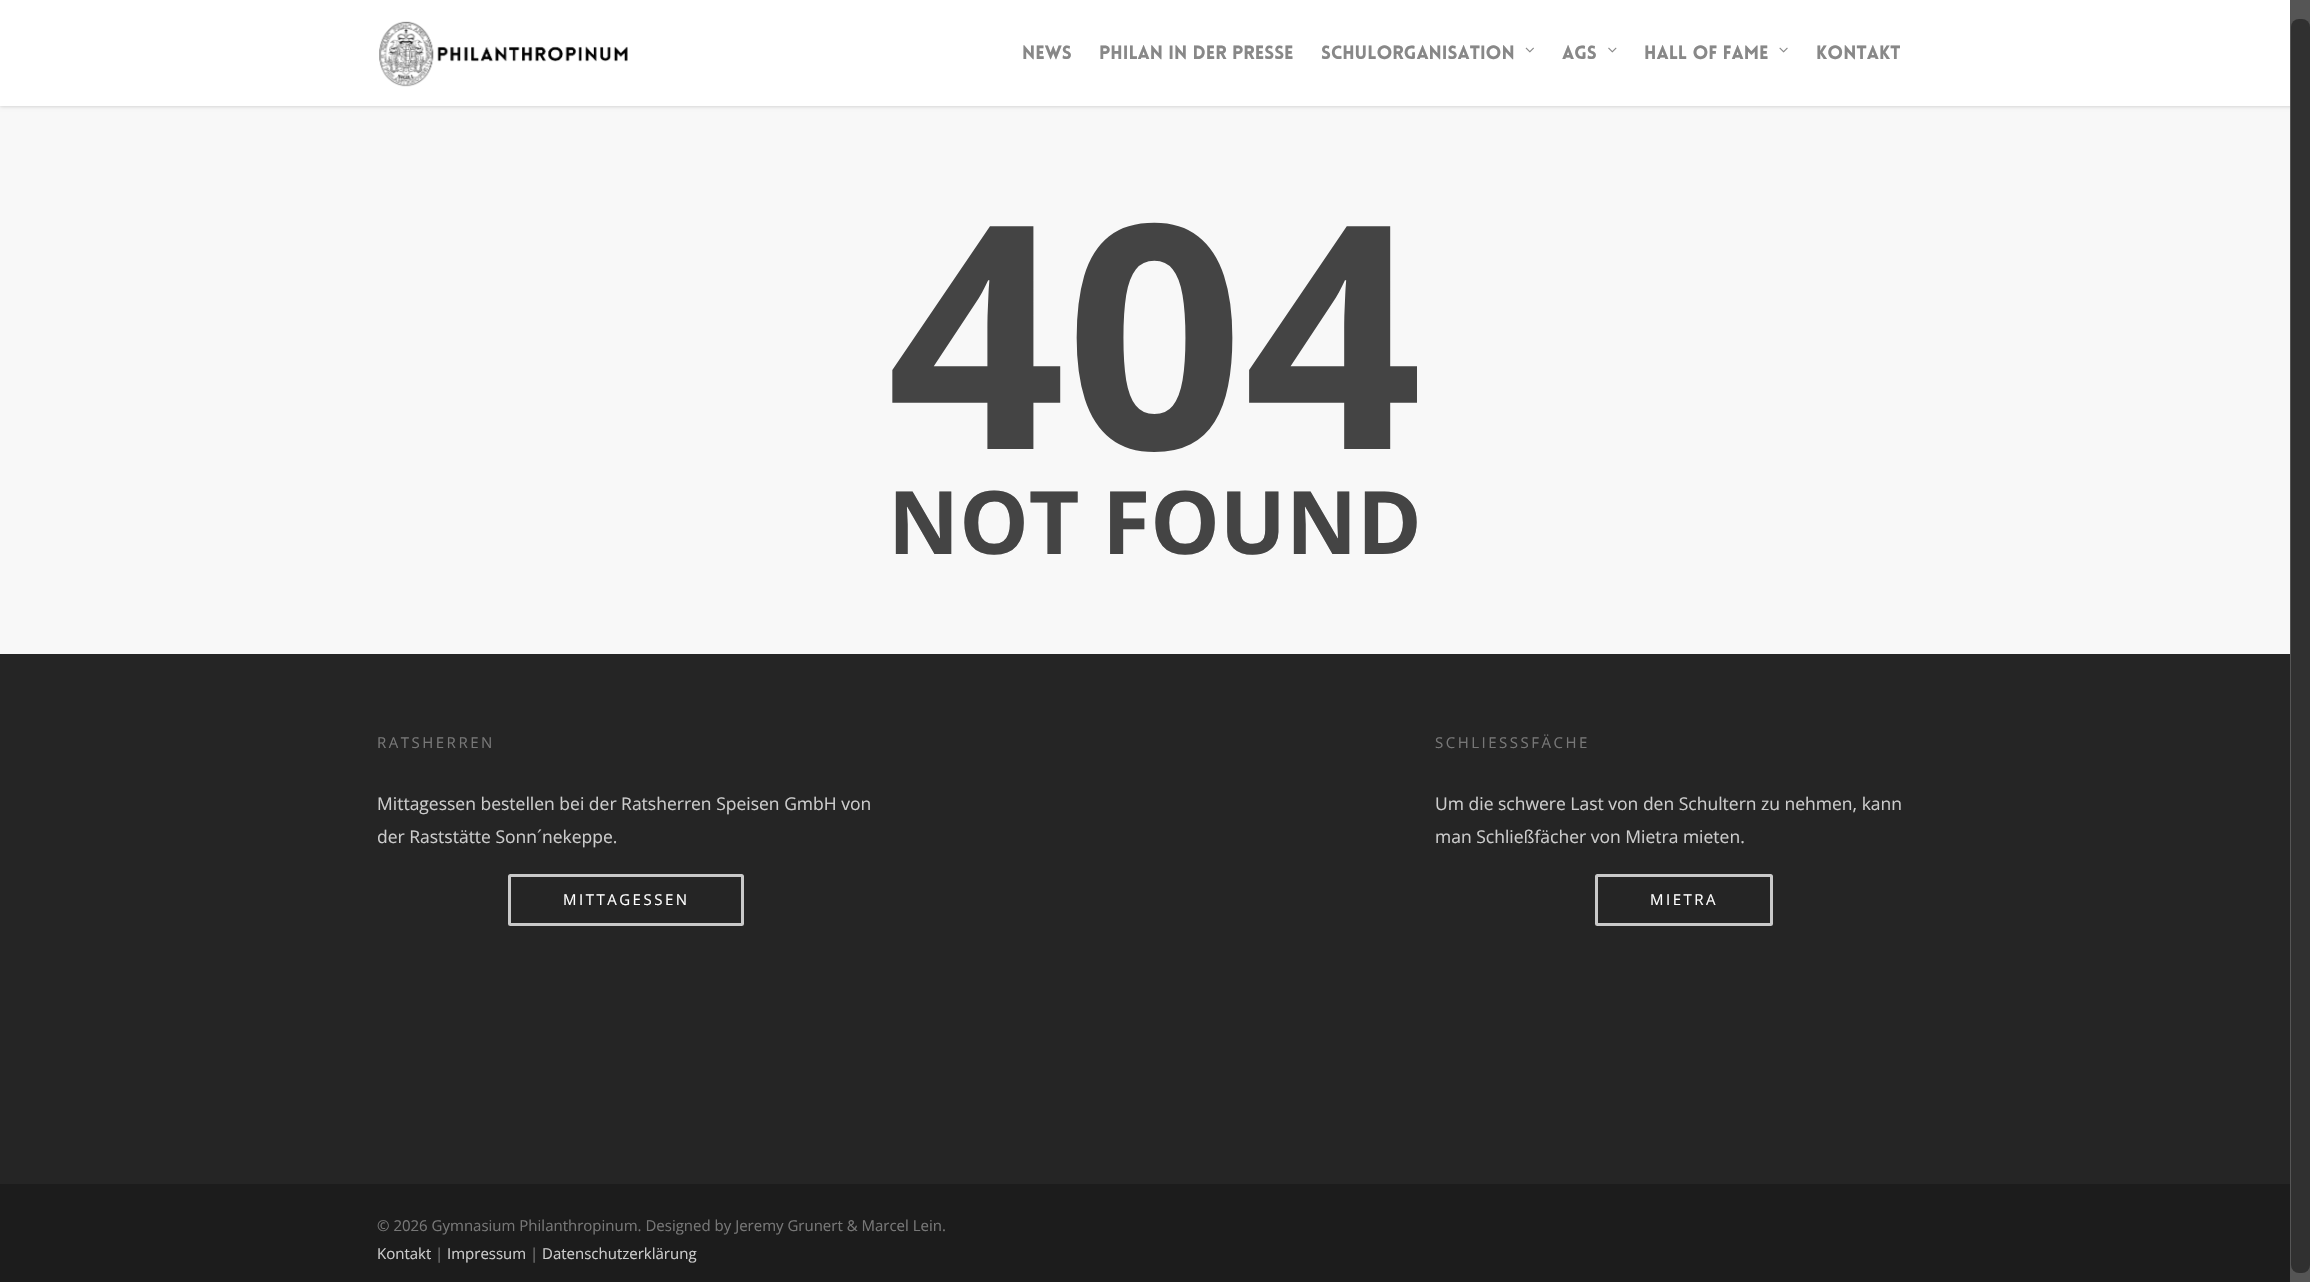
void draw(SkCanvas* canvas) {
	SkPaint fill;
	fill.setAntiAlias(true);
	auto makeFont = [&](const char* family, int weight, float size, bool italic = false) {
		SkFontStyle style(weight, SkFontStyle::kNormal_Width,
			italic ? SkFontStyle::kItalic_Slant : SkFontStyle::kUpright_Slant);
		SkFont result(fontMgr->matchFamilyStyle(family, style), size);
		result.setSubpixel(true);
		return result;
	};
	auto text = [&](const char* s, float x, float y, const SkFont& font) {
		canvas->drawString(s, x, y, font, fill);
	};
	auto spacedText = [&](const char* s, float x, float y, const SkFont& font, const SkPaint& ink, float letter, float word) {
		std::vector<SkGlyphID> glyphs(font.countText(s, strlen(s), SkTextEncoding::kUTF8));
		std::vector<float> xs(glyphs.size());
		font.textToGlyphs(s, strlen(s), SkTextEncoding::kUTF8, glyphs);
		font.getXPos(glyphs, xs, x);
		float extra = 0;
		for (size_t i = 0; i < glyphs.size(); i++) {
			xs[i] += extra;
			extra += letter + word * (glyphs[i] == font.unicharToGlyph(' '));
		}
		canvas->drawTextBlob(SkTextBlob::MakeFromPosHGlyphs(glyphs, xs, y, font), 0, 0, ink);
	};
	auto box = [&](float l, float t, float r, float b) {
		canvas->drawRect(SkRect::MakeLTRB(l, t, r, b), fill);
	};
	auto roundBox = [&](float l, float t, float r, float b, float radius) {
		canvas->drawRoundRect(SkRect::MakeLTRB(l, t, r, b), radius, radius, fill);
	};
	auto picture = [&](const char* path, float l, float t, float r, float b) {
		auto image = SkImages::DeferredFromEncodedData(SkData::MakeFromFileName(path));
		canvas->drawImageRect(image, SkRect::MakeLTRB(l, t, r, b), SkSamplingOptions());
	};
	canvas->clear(0xFFF8F8F8);
	fill.setColor(0x38000000);
	fill.setMaskFilter(SkMaskFilter::MakeBlur(kNormal_SkBlurStyle, 2));
	canvas->drawRect(SkRect::MakeLTRB(0, 0, 2310, 106), fill);
	fill.setMaskFilter(nullptr);
	fill.setColor(0xFFFFFFFF);
	box(0, 0, 2290, 106);
	picture("image0.png", 379, 21, 628, 87);
	picture("image1.png", 1525, 47, 1534, 53);
	picture("image2.png", 1608, 47, 1617, 53);
	picture("image3.png", 1779, 47, 1788, 53);
	fill.setColor(0xFF555555);
	box(2290, 0, 2310, 1282);
	fill.setColor(0xFF303030);
	roundBox(2291, 19, 2310, 1273, 8);
	fill.setColor(0xFF252525);
	box(0, 654, 2290, 1184);
	fill.setStyle(SkPaint::kStroke_Style);
	fill.setStrokeWidth(3);
	fill.setColor(0xFFC9C9C9);
	canvas->drawRoundRect(SkRect::MakeLTRB(509.5f, 875.5f, 742.5f, 924.5f), 1, 1, fill);
	canvas->drawRoundRect(SkRect::MakeLTRB(1596.5f, 875.5f, 1771.5f, 924.5f), 1, 1, fill);
	fill.setStyle(SkPaint::kFill_Style);
	fill.setColor(0xFF1C1C1C);
	box(0, 1184, 2290, 1282);
	auto font1 = makeFont("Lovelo", 900, 18.75f);
	fill.setColor(0xFF888888);
	text("News", 1022, 59, font1);
	text("Philan in der Presse", 1099, 59, font1);
	text("Schulorganisation", 1321, 59, font1);
	text("AGs", 1562, 59, font1);
	text("Hall of Fame", 1644, 59, font1);
	text("Kontakt", 1816, 59, font1);
	auto font2 = makeFont("Open Sans", 700, 312);
	fill.setColor(0xFF444444);
	text("404", 887, 449, font2);
	auto font3 = makeFont("Open Sans", 700, 87.5f);
	text("NOT FOUND", 888, 554, font3);
	auto font4 = makeFont("Open Sans", 400, 15);
	fill.setColor(0xFF777777);
	spacedText("RATSHERREN", 377, 748, font4, fill, 2.5f, 0);
	auto font5 = makeFont("Open Sans", 400, 17.5f);
	fill.setColor(0xFFCCCCCC);
	text("Mittagessen bestellen bei der Ratsherren Speisen GmbH von", 377, 810, font5);
	text("der Raststätte Sonn´nekeppe.", 377, 843, font5);
	fill.setColor(0xFFFFFFFF);
	spacedText("MITTAGESSEN", 563, 905, font4, fill, 2.5f, 0);
	fill.setColor(0xFF777777);
	spacedText("SCHLIESSSFÄCHE", 1435, 748, font4, fill, 2.5f, 0);
	fill.setColor(0xFFCCCCCC);
	text("Um die schwere Last von den Schultern zu nehmen, kann", 1435, 810, font5);
	text("man Schließfächer von Mietra mieten.", 1435, 843, font5);
	fill.setColor(0xFFFFFFFF);
	spacedText("MIETRA", 1650, 905, font4, fill, 2.5f, 0);
	fill.setColor(0xFF777777);
	text("© 2026 Gymnasium Philanthropinum. Designed by Jeremy Grunert & Marcel Lein.", 377, 1231, font4);
	fill.setColor(0xFFCCCCCC);
	text("Kontakt", 377, 1259, font4);
	fill.setColor(0xFF777777);
	text("|", 435, 1259, font4);
	fill.setColor(0xFFCCCCCC);
	text("Impressum", 447, 1259, font4);
	fill.setColor(0xFF777777);
	text("|", 530, 1259, font4);
	fill.setColor(0xFFCCCCCC);
	text("Datenschutzerklärung", 542, 1259, font4);
}
